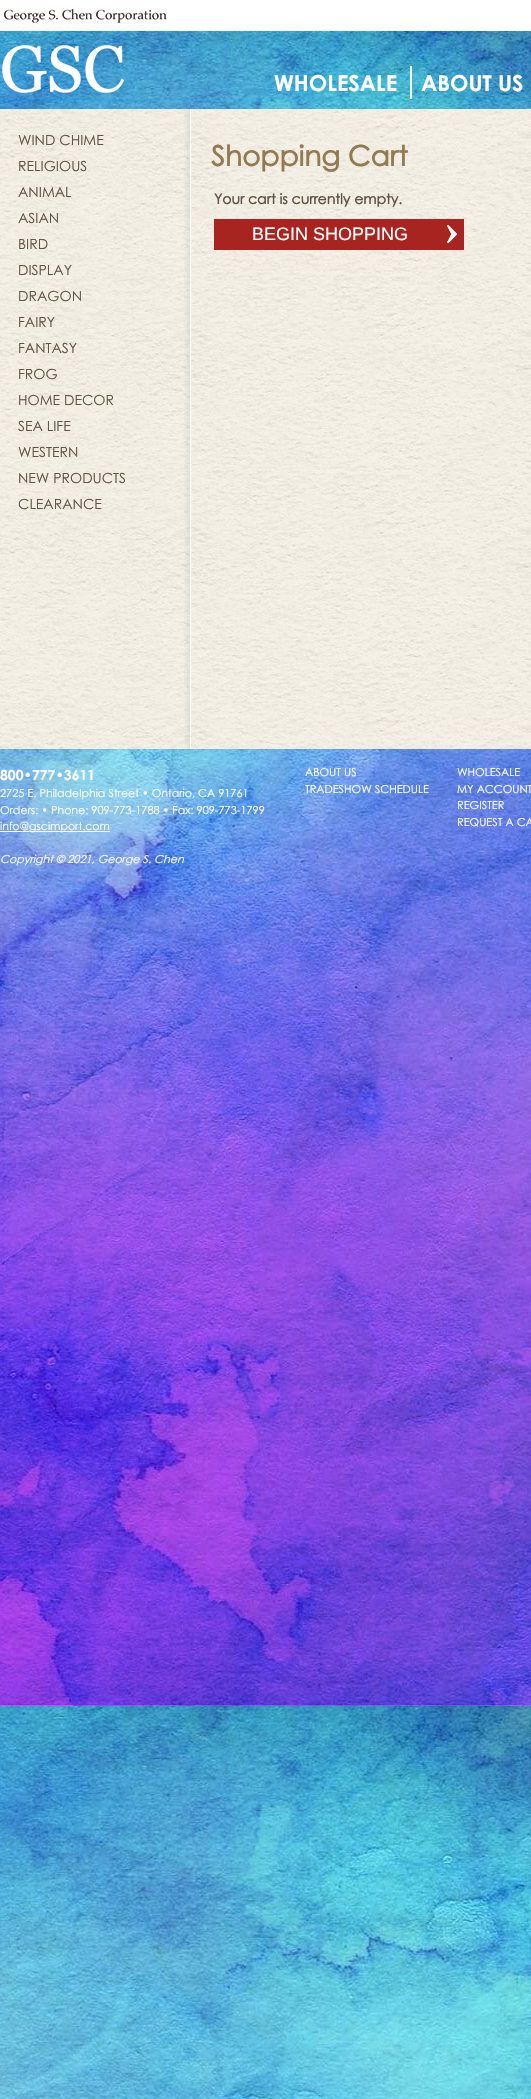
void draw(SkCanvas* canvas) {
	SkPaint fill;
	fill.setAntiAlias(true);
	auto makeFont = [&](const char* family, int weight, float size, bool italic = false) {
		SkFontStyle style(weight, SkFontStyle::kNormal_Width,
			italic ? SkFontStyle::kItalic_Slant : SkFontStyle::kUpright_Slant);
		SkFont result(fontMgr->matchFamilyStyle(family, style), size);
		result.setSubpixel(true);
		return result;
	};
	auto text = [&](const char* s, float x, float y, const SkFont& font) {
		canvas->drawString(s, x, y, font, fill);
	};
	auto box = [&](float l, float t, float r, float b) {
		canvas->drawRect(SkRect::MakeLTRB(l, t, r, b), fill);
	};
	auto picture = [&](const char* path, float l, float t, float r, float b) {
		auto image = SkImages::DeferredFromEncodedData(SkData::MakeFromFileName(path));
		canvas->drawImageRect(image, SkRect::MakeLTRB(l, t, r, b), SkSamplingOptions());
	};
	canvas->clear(0xFFFFFFFF);
	picture("image0.png", 0, 31, 531, 2099);
	picture("image1.png", 2, 9, 167, 93);
	fill.setColor(0xFFFFFFFF);
	box(410, 66, 412, 99);
	picture("image2.png", 0, 109, 531, 749);
	picture("image3.png", 184, 109, 191, 749);
	fill.setColor(0xFFA82420);
	box(214, 219, 464, 250);
	picture("image4.png", 447, 225, 457, 243);
	fill.setColor(0xFFFFFFFF);
	box(0, 831, 110, 832);
	auto font1 = makeFont("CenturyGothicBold", 700, 22);
	text("WHOLESALE", 274, 91, font1);
	text("ABOUT US", 421, 91, font1);
	auto font2 = makeFont("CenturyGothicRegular", 400, 14);
	fill.setColor(0xFF615348);
	text("WIND CHIME", 18, 145, font2);
	text("RELIGIOUS", 18, 171, font2);
	text("ANIMAL", 18, 197, font2);
	text("ASIAN", 18, 223, font2);
	text("BIRD", 18, 249, font2);
	text("DISPLAY", 18, 275, font2);
	text("DRAGON", 18, 301, font2);
	text("FAIRY", 18, 327, font2);
	text("FANTASY", 18, 353, font2);
	text("FROG", 18, 379, font2);
	text("HOME DECOR", 18, 405, font2);
	text("SEA LIFE", 18, 431, font2);
	text("WESTERN", 18, 457, font2);
	text("NEW PRODUCTS", 18, 483, font2);
	text("CLEARANCE", 18, 509, font2);
	auto font3 = makeFont("CenturyGothicRegular", 700, 28);
	fill.setColor(0xFF927A52);
	text("Shopping Cart", 211, 166, font3);
	auto font4 = makeFont("CenturyGothicRegular", 700, 14);
	fill.setColor(0xFF615348);
	text("Your cart is currently empty.", 214, 204, font4);
	auto font5 = makeFont("Liberation Sans", 400, 18);
	fill.setColor(0xFFFFFFFF);
	text("BEGIN SHOPPING", 252, 240, font5);
	auto font6 = makeFont("CenturyGothicBold", 700, 14);
	text("800•777•3611", 0, 780, font6);
	auto font7 = makeFont("CenturyGothicRegular", 400, 11);
	text("2725 E. Philadelphia Street • Ontario, CA 91761", 0, 797, font7);
	text("Orders: • Phone: 909-773-1788 • Fax: 909-773-1799", 0, 814, font7);
	text("info@gscimport.com", 0, 830, font7);
	auto font8 = makeFont("CenturyGothicRegular", 400, 11, true);
	text("Copyright © 2021, George S. Chen", 0, 863, font8);
	text("ABOUT US", 305, 776, font7);
	text("TRADESHOW SCHEDULE", 305, 793, font7);
	text("WHOLESALE", 457, 776, font7);
	text("MY ACCOUNT", 457, 793, font7);
	text("REGISTER", 457, 809, font7);
	text("REQUEST A CA", 457, 826, font7);
}
